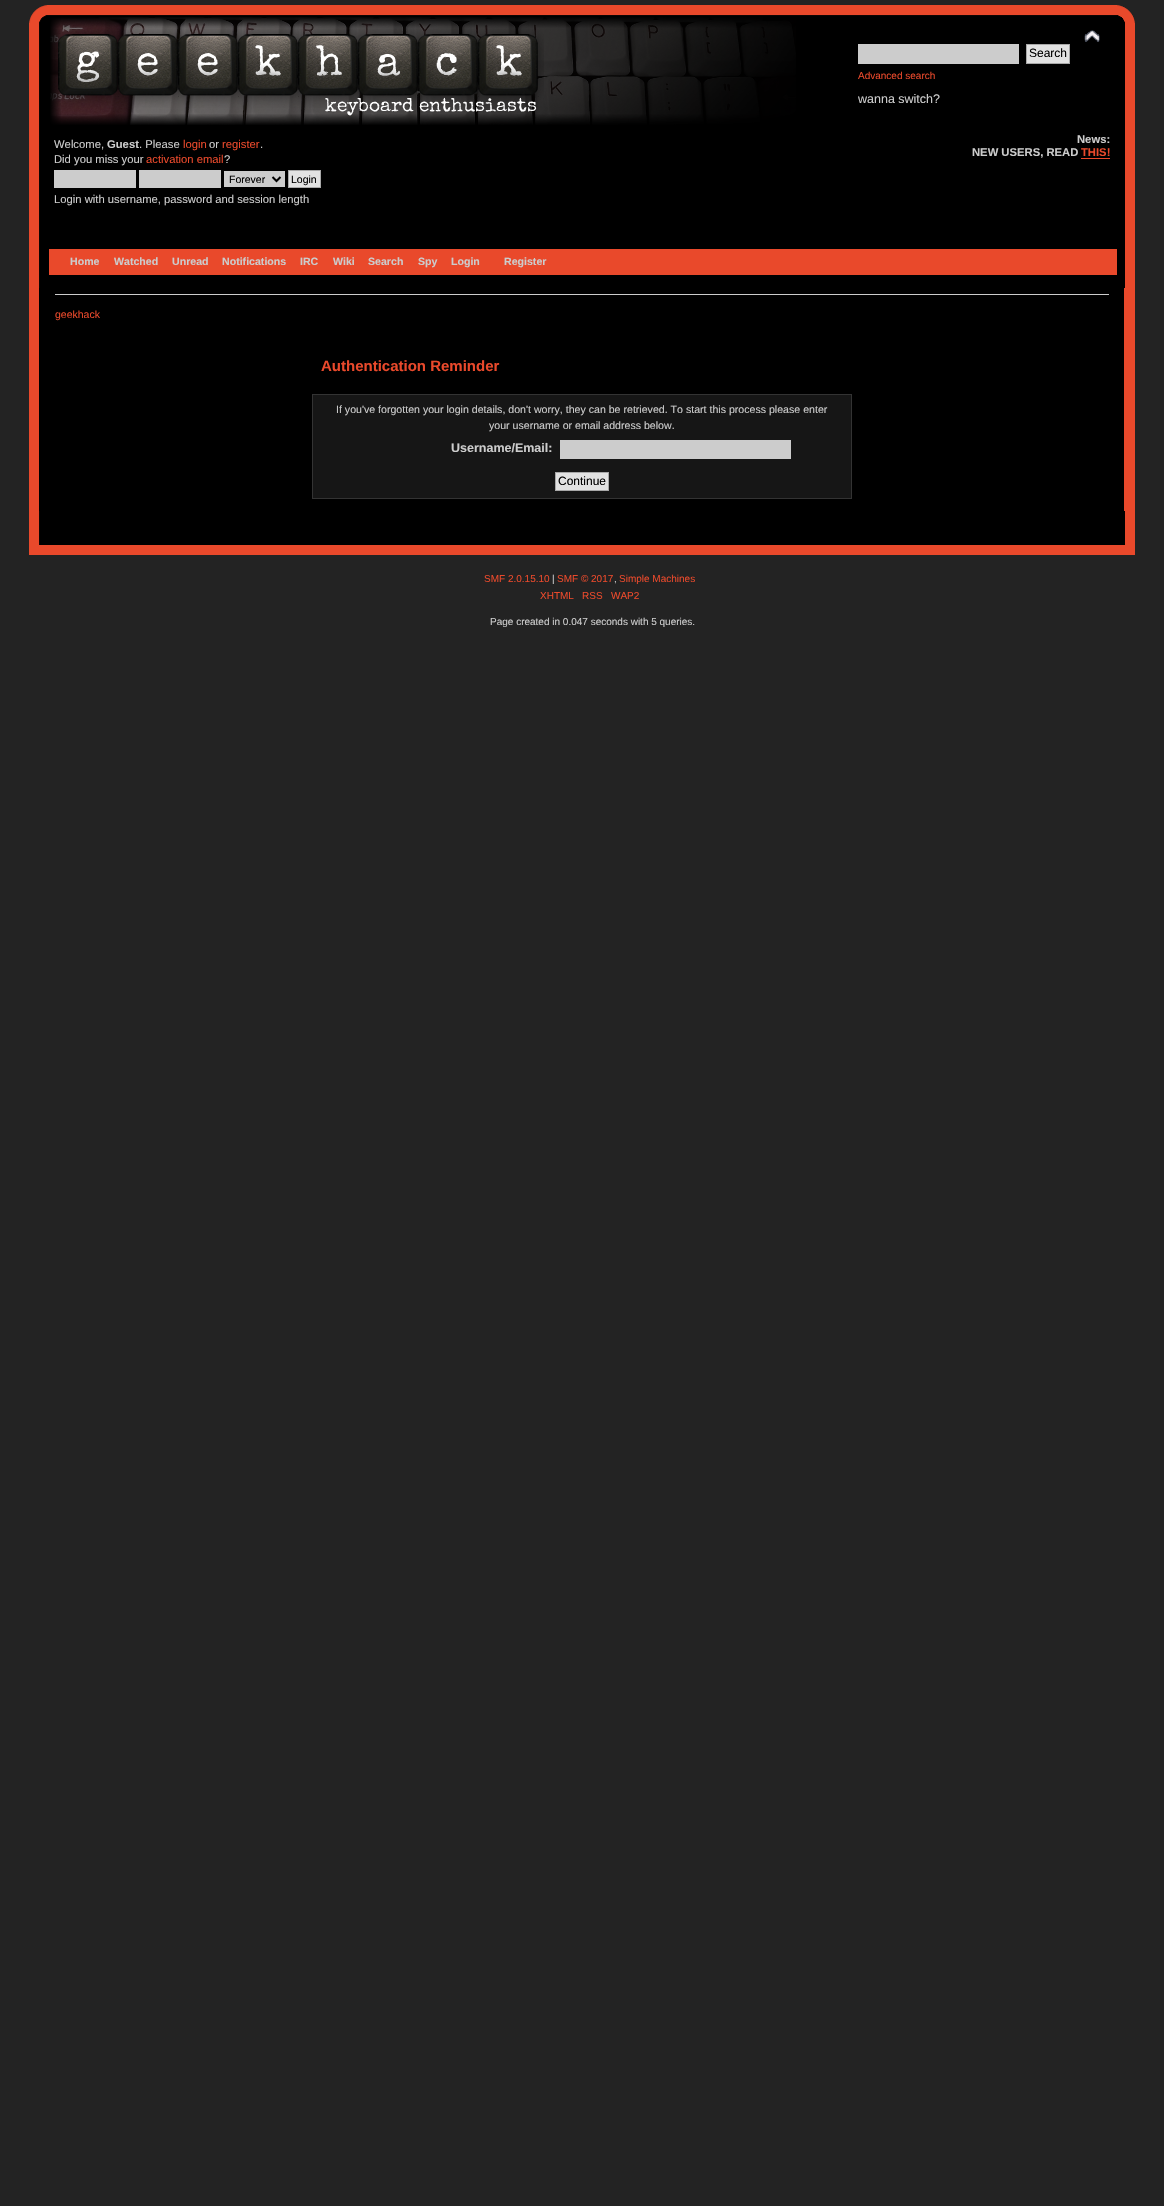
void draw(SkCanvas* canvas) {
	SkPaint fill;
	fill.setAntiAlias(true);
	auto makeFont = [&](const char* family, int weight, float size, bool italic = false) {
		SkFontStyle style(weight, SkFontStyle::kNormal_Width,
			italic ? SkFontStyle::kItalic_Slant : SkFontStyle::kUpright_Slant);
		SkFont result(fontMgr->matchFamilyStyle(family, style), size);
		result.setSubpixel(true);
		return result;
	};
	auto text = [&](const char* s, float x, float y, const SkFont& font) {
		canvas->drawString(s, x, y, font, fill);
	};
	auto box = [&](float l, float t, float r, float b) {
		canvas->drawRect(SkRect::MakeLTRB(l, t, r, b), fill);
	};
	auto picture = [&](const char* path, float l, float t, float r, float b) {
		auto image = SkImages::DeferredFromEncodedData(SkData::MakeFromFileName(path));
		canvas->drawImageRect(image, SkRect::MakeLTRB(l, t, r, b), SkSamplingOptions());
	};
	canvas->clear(0xFF232323);
	picture("image0.png", 29, 5, 1117, 288);
	picture("image1.png", 1117, 5, 1135, 288);
	picture("image2.png", 50, 17, 796, 125);
	picture("image3.png", 54, 27, 544, 116);
	picture("image4.png", 1084, 30, 1100, 42);
	fill.setColor(0xFFCCCCCC);
	box(858, 44, 1019, 64);
	fill.setColor(0xFFE2E2E2);
	canvas->drawRect(SkRect::MakeLTRB(1026.5f, 44.5f, 1069.5f, 63.5f), fill);
	fill.setStyle(SkPaint::kStroke_Style);
	fill.setStrokeWidth(1);
	fill.setColor(0xFFA8A8A8);
	canvas->drawRect(SkRect::MakeLTRB(1026.5f, 44.5f, 1069.5f, 63.5f), fill);
	fill.setStyle(SkPaint::kFill_Style);
	fill.setColor(0xFFCCCCCC);
	box(54, 170, 136, 188);
	box(139, 170, 221, 188);
	box(224, 171, 285, 187);
	fill.setStyle(SkPaint::kStroke_Style);
	fill.setStrokeWidth(2);
	fill.setColor(0xFF000000);
	canvas->drawPath(SkPathBuilder().moveTo(272.5f, 177).lineTo(276.5f, 181).lineTo(280.5f, 177).detach(), fill);
	fill.setStyle(SkPaint::kFill_Style);
	fill.setColor(0xFFE2E2E2);
	canvas->drawRect(SkRect::MakeLTRB(288.5f, 170.5f, 320.5f, 187.5f), fill);
	fill.setStyle(SkPaint::kStroke_Style);
	fill.setStrokeWidth(1);
	fill.setColor(0xFFA8A8A8);
	canvas->drawRect(SkRect::MakeLTRB(288.5f, 170.5f, 320.5f, 187.5f), fill);
	fill.setStyle(SkPaint::kFill_Style);
	fill.setColor(0xFFE9492B);
	box(1081, 158, 1110, 159);
	box(49, 249, 1117, 275);
	fill.setColor(0xFF000000);
	box(39, 288, 1124, 511);
	fill.setColor(0xFFE9492B);
	box(29, 288, 39, 511);
	box(1124, 288, 1135, 511);
	fill.setColor(0xFFCCCCCC);
	box(55, 294, 1109, 295);
	fill.setColor(0xFF161616);
	canvas->drawRect(SkRect::MakeLTRB(312.5f, 394.5f, 851.5f, 498.5f), fill);
	fill.setStyle(SkPaint::kStroke_Style);
	fill.setColor(0xFF333333);
	canvas->drawRect(SkRect::MakeLTRB(312.5f, 394.5f, 851.5f, 498.5f), fill);
	fill.setStyle(SkPaint::kFill_Style);
	fill.setColor(0xFFCCCCCC);
	box(560, 440, 791, 459);
	fill.setColor(0xFFE2E2E2);
	canvas->drawRect(SkRect::MakeLTRB(555.5f, 472.5f, 608.5f, 490.5f), fill);
	fill.setStyle(SkPaint::kStroke_Style);
	fill.setColor(0xFFA8A8A8);
	canvas->drawRect(SkRect::MakeLTRB(555.5f, 472.5f, 608.5f, 490.5f), fill);
	picture("image5.png", 29, 511, 1135, 555);
	fill.setStyle(SkPaint::kFill_Style);
	fill.setColor(0xFFE9492B);
	box(1125, 511, 1135, 545);
	auto font1 = makeFont("Liberation Sans", 400, 12);
	fill.setColor(0xFF000000);
	text("Search", 1029, 57, font1);
	auto font2 = makeFont("Liberation Sans", 400, 10);
	fill.setColor(0xFFE9492B);
	text("Advanced search", 858, 79, font2);
	auto font3 = makeFont("Liberation Sans", 400, 12.5f);
	fill.setColor(0xFFCCCCCC);
	text("wanna switch?", 858, 103, font3);
	auto font4 = makeFont("Liberation Sans", 400, 11.25f);
	text("Welcome,", 54, 148, font4);
	auto font5 = makeFont("Liberation Sans", 700, 11.25f);
	text("Guest", 107, 148, font5);
	text(". Please", 139, 148, font4);
	fill.setColor(0xFFE9492B);
	text("login", 183, 148, font4);
	fill.setColor(0xFFCCCCCC);
	text("or", 209, 148, font4);
	fill.setColor(0xFFE9492B);
	text("register", 222, 148, font4);
	fill.setColor(0xFFCCCCCC);
	text(".", 260, 148, font4);
	text("Did you miss your", 54, 163, font4);
	fill.setColor(0xFFE9492B);
	text("activation email", 146, 163, font4);
	fill.setColor(0xFFCCCCCC);
	text("?", 224, 163, font4);
	auto font6 = makeFont("Liberation Sans", 400, 10.5f);
	fill.setColor(0xFF000000);
	text("Forever", 229, 183, font6);
	text("Login", 291, 183, font6);
	fill.setColor(0xFFCCCCCC);
	text("Login with username, password and session length", 54, 203, font4);
	text("News:", 1077, 143, font5);
	text("NEW USERS, READ", 972, 156, font5);
	fill.setColor(0xFFE9492B);
	text("THIS!", 1081, 156, font5);
	auto font7 = makeFont("Liberation Sans", 700, 10.6f);
	fill.setColor(0xFFCCCCCC);
	text("Home", 70, 265, font7);
	text("Watched", 114, 265, font7);
	text("Unread", 172, 265, font7);
	text("Notifications", 222, 265, font7);
	text("IRC", 300, 265, font7);
	text("Wiki", 333, 265, font7);
	text("Search", 368, 265, font7);
	text("Spy", 418, 265, font7);
	text("Login", 451, 265, font7);
	text("Register", 504, 265, font7);
	fill.setColor(0xFFE9492B);
	text("geekhack", 55, 318, font6);
	auto font8 = makeFont("Liberation Sans", 700, 15);
	text("Authentication Reminder", 321, 371, font8);
	auto font9 = makeFont("Liberation Sans", 400, 10.6f);
	fill.setColor(0xFFCCCCCC);
	text("If you've forgotten your login details, don't worry, they can be retrieved. To start this process please enter", 336, 413, font9);
	text("your username or email address below.", 489, 429, font9);
	auto font10 = makeFont("Liberation Sans", 700, 12.5f);
	text("Username/Email:", 451, 452, font10);
	fill.setColor(0xFF000000);
	text("Continue", 558, 485, font1);
	fill.setColor(0xFFE9492B);
	text("SMF 2.0.15.10", 484, 582, font2);
	fill.setColor(0xFFCCCCCC);
	text("|", 552, 582, font2);
	fill.setColor(0xFFE9492B);
	text("SMF © 2017", 557, 582, font2);
	fill.setColor(0xFFCCCCCC);
	text(",", 614, 582, font2);
	fill.setColor(0xFFE9492B);
	text("Simple Machines", 619, 582, font2);
	text("XHTML", 540, 599, font2);
	text("RSS", 582, 599, font2);
	text("WAP2", 611, 599, font2);
	fill.setColor(0xFFCCCCCC);
	text("Page created in 0.047 seconds with 5 queries.", 490, 625, font2);
}
